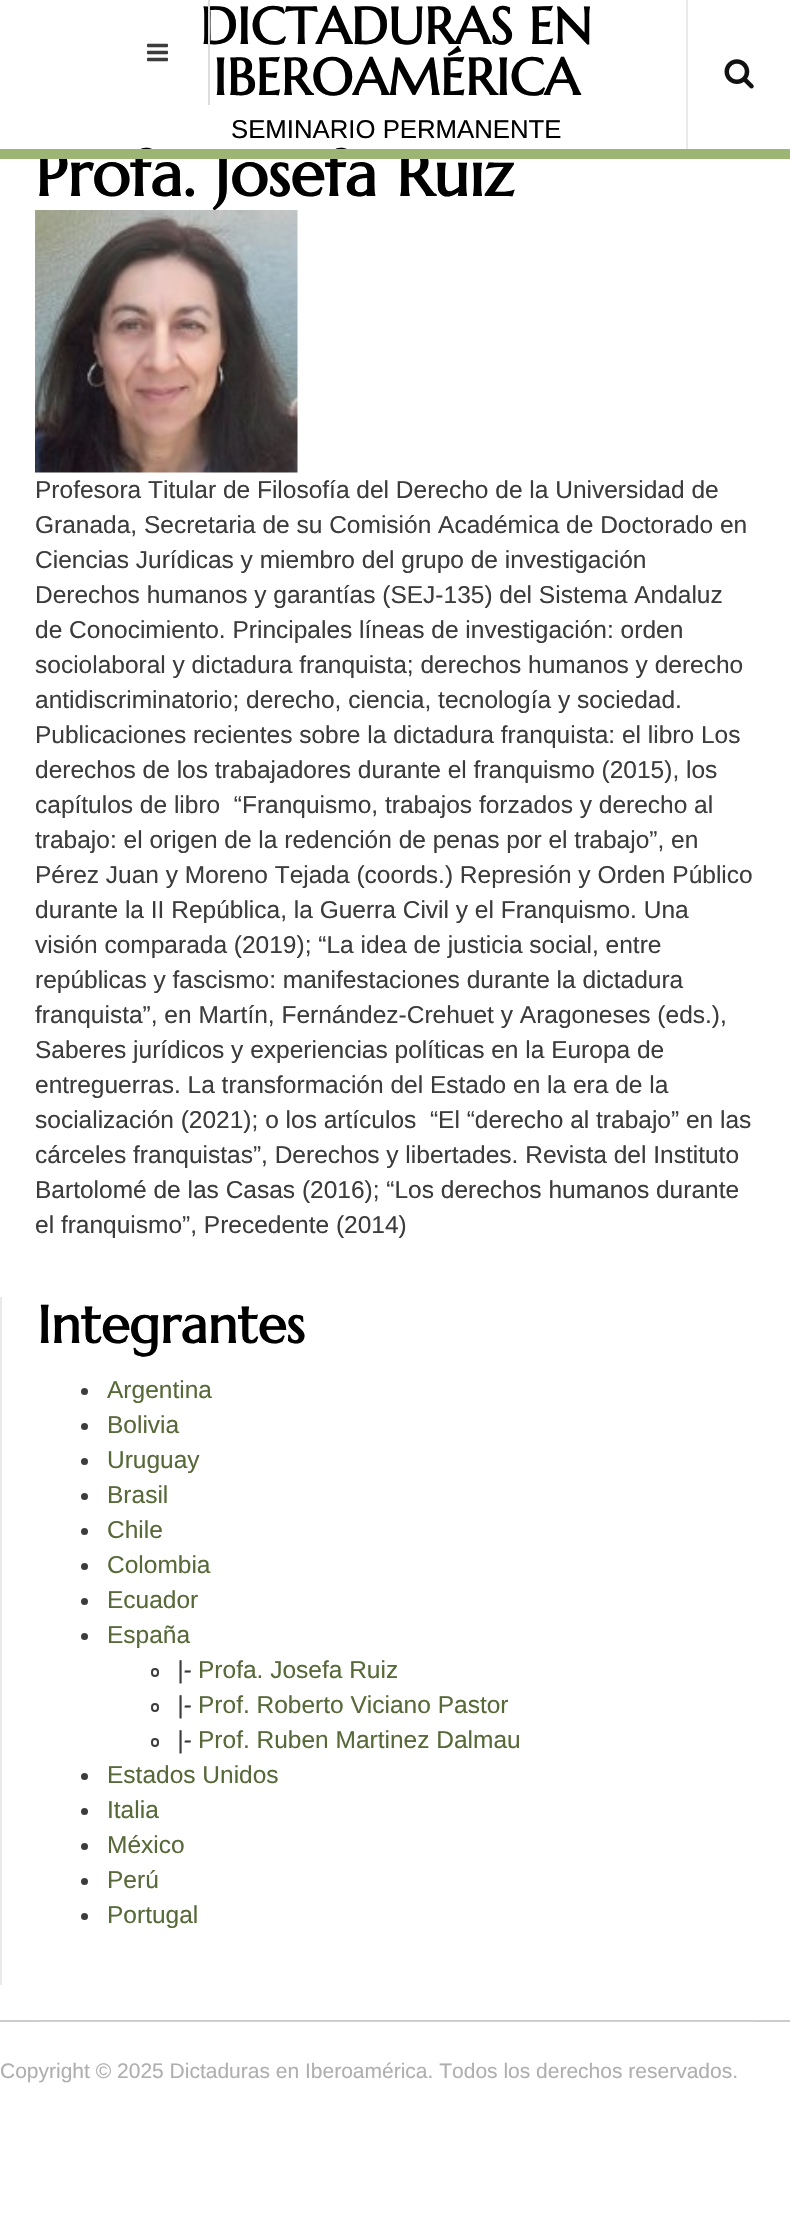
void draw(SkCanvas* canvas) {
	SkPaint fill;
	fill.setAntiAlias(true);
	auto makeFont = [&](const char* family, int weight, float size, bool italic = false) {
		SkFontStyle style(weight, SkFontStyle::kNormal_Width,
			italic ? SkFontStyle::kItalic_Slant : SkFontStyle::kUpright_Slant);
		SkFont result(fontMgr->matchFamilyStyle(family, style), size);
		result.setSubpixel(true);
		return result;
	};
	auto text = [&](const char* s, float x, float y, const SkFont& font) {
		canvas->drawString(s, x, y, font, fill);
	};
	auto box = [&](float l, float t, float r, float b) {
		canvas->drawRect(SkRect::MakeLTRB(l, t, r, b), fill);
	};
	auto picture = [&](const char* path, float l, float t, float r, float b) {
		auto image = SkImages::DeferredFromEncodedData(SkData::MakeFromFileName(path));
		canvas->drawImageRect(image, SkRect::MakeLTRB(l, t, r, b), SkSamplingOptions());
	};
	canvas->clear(0xFFFFFFFF);
	picture("image0.png", 147, 43, 168, 62);
	fill.setColor(0xFFEAEAEA);
	box(686, 0, 688, 149);
	picture("image1.png", 724, 59, 754, 89);
	box(0, 1297, 2, 1985);
	fill.setColor(0xFF3C3C3C);
	canvas->drawCircle(84.5f, 1391.5f, 3.5f, fill);
	canvas->drawCircle(84.5f, 1426.5f, 3.5f, fill);
	canvas->drawCircle(84.5f, 1461.5f, 3.5f, fill);
	canvas->drawCircle(84.5f, 1496.5f, 3.5f, fill);
	canvas->drawCircle(84.5f, 1531.5f, 3.5f, fill);
	canvas->drawCircle(84.5f, 1566.5f, 3.5f, fill);
	canvas->drawCircle(84.5f, 1601.5f, 3.5f, fill);
	canvas->drawCircle(84.5f, 1636.5f, 3.5f, fill);
	fill.setStyle(SkPaint::kStroke_Style);
	fill.setStrokeWidth(2);
	canvas->drawRoundRect(SkRect::MakeLTRB(152, 1669, 158, 1676), 3, 3, fill);
	canvas->drawRoundRect(SkRect::MakeLTRB(152, 1704, 158, 1711), 3, 3, fill);
	canvas->drawRoundRect(SkRect::MakeLTRB(152, 1739, 158, 1746), 3, 3, fill);
	fill.setStyle(SkPaint::kFill_Style);
	canvas->drawCircle(84.5f, 1776.5f, 3.5f, fill);
	canvas->drawCircle(84.5f, 1811.5f, 3.5f, fill);
	canvas->drawCircle(84.5f, 1846.5f, 3.5f, fill);
	canvas->drawCircle(84.5f, 1881.5f, 3.5f, fill);
	canvas->drawCircle(84.5f, 1916.5f, 3.5f, fill);
	fill.setColor(0xFFCCCCCC);
	box(0, 2020, 790, 2022);
	fill.setColor(0xFFD1D1D1);
	box(35, 2021, 756, 2022);
	auto font1 = makeFont("Marcellus", 700, 51.5f);
	fill.setColor(0xFF000000);
	text("DICTADURAS EN", 200, 44, font1);
	fill.setColor(0xFFDDDDDD);
	box(208, 0, 210, 105);
	fill.setColor(0xFF000000);
	text("IBEROAMÉRICA", 213, 95, font1);
	auto font2 = makeFont("Liberation Sans", 400, 25.75f);
	text("SEMINARIO PERMANENTE", 231, 138, font2);
	auto font3 = makeFont("Marcellus", 700, 63);
	text("Profa. Josefa Ruiz", 35, 196, font3);
	fill.setColor(0xFF9CB574);
	box(0, 149, 790, 159);
	picture("image2.png", 35, 210, 298, 473);
	auto font4 = makeFont("Liberation Sans", 400, 24.5f);
	fill.setColor(0xFF3C3C3C);
	text("Profesora Titular de Filosofía del Derecho de la Universidad de", 35, 498, font4);
	text("Granada, Secretaria de su Comisión Académica de Doctorado en", 35, 533, font4);
	text("Ciencias Jurídicas y miembro del grupo de investigación", 35, 568, font4);
	text("Derechos humanos y garantías (SEJ-135) del Sistema Andaluz", 35, 603, font4);
	text("de Conocimiento. Principales líneas de investigación: orden", 35, 638, font4);
	text("sociolaboral y dictadura franquista; derechos humanos y derecho", 35, 673, font4);
	text("antidiscriminatorio; derecho, ciencia, tecnología y sociedad.", 35, 708, font4);
	text("Publicaciones recientes sobre la dictadura franquista: el libro Los", 35, 743, font4);
	text("derechos de los trabajadores durante el franquismo (2015), los", 35, 778, font4);
	text("capítulos de libro  “Franquismo, trabajos forzados y derecho al", 35, 813, font4);
	text("trabajo: el origen de la redención de penas por el trabajo”, en", 35, 848, font4);
	text("Pérez Juan y Moreno Tejada (coords.) Represión y Orden Público", 35, 883, font4);
	text("durante la II República, la Guerra Civil y el Franquismo. Una", 35, 918, font4);
	text("visión comparada (2019); “La idea de justicia social, entre", 35, 953, font4);
	text("repúblicas y fascismo: manifestaciones durante la dictadura", 35, 988, font4);
	text("franquista”, en Martín, Fernández-Crehuet y Aragoneses (eds.),", 35, 1023, font4);
	text("Saberes jurídicos y experiencias políticas en la Europa de", 35, 1058, font4);
	text("entreguerras. La transformación del Estado en la era de la", 35, 1093, font4);
	text("socialización (2021); o los artículos  “El “derecho al trabajo” en las", 35, 1128, font4);
	text("cárceles franquistas”, Derechos y libertades. Revista del Instituto", 35, 1163, font4);
	text("Bartolomé de las Casas (2016); “Los derechos humanos durante", 35, 1198, font4);
	text("el franquismo”, Precedente (2014)", 35, 1233, font4);
	auto font5 = makeFont("Marcellus", 700, 52.5f);
	fill.setColor(0xFF000000);
	text("Integrantes", 37, 1343, font5);
	fill.setColor(0xFF576939);
	text("Argentina", 107, 1398, font4);
	text("Bolivia", 107, 1433, font4);
	text("Uruguay", 107, 1468, font4);
	text("Brasil", 107, 1503, font4);
	text("Chile", 107, 1538, font4);
	text("Colombia", 107, 1573, font4);
	text("Ecuador", 107, 1608, font4);
	text("España", 107, 1643, font4);
	auto font6 = makeFont("Liberation Sans", 400, 24.5f, true);
	fill.setColor(0xFF3C3C3C);
	text("|-", 177, 1678, font6);
	fill.setColor(0xFF576939);
	text("Profa. Josefa Ruiz", 198, 1678, font4);
	fill.setColor(0xFF3C3C3C);
	text("|-", 177, 1713, font6);
	fill.setColor(0xFF576939);
	text("Prof. Roberto Viciano Pastor", 198, 1713, font4);
	fill.setColor(0xFF3C3C3C);
	text("|-", 177, 1748, font6);
	fill.setColor(0xFF576939);
	text("Prof. Ruben Martinez Dalmau", 198, 1748, font4);
	text("Estados Unidos", 107, 1783, font4);
	text("Italia", 107, 1818, font4);
	text("México", 107, 1853, font4);
	text("Perú", 107, 1888, font4);
	text("Portugal", 107, 1923, font4);
	auto font7 = makeFont("Liberation Sans", 400, 21);
	fill.setColor(0xFFAFAFAF);
	text("Copyright © 2025 Dictaduras en Iberoamérica. Todos los derechos reservados.", 0, 2078, font7);
}
